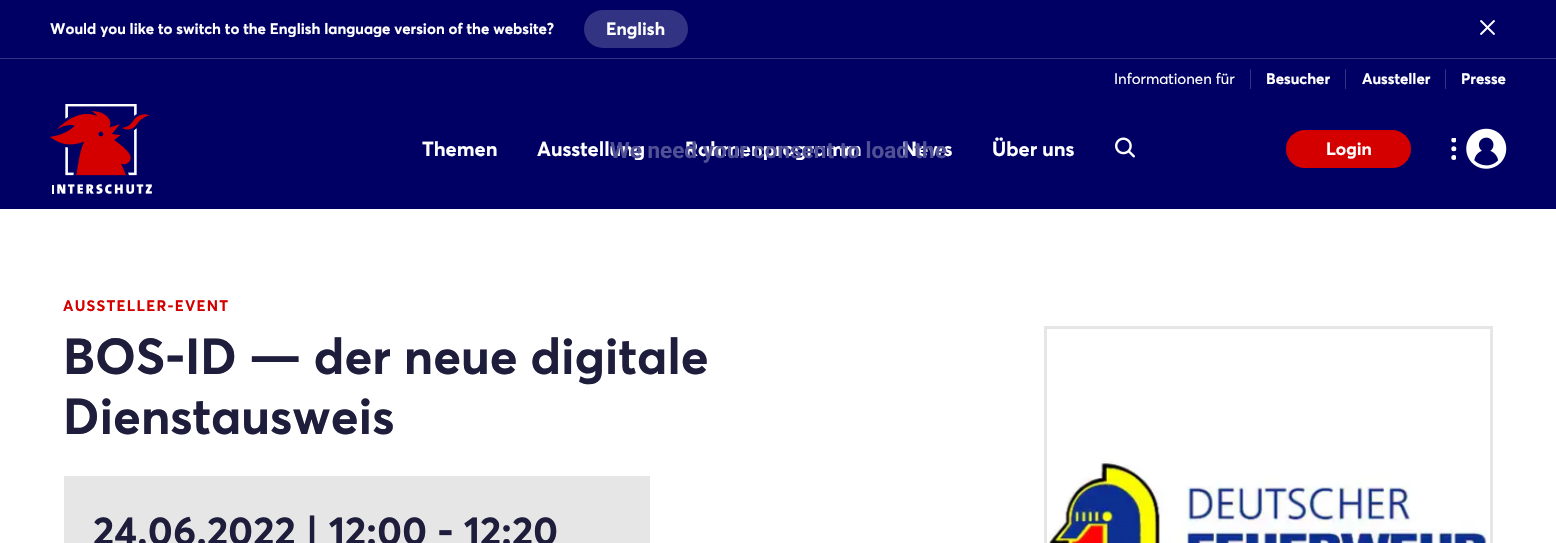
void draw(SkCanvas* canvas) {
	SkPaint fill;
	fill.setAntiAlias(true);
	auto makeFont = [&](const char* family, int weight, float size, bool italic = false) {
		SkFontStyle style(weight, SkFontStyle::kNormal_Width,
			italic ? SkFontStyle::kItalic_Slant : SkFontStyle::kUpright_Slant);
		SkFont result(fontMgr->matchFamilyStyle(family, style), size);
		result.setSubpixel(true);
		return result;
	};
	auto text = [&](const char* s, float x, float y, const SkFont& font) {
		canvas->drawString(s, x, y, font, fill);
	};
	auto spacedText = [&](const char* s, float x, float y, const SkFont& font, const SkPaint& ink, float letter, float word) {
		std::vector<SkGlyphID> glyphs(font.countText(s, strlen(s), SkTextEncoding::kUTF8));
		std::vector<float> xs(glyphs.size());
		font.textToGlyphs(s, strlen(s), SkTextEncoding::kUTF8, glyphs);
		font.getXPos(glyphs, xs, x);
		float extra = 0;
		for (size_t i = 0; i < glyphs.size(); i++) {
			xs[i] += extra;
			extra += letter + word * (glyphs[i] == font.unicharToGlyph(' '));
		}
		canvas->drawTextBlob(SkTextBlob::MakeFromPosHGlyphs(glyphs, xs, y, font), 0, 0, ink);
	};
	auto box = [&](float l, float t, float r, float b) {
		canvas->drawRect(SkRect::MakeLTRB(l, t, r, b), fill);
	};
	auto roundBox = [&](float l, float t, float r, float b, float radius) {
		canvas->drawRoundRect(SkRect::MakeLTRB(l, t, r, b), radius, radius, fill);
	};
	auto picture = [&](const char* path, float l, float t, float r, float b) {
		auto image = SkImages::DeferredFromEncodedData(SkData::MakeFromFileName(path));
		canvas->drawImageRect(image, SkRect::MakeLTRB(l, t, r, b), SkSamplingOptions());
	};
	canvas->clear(0xFF000064);
	fill.setColor(0xFF333383);
	box(0, 58, 1556, 59);
	roundBox(584, 10, 688, 48, 19);
	picture("image0.png", 1480, 20, 1495, 35);
	roundBox(1250, 69, 1251, 89, 0.5f);
	roundBox(1345, 69, 1346, 89, 0.5f);
	roundBox(1445, 69, 1446, 89, 0.5f);
	picture("image1.png", 50, 104, 152, 194);
	picture("image2.png", 1115, 137, 1135, 158);
	fill.setColor(0xFFD40000);
	canvas->drawRoundRect(SkRect::MakeLTRB(1287.5f, 131.5f, 1409.5f, 166.5f), 17.5f, 17.5f, fill);
	fill.setStyle(SkPaint::kStroke_Style);
	fill.setStrokeWidth(3);
	canvas->drawRoundRect(SkRect::MakeLTRB(1287.5f, 131.5f, 1409.5f, 166.5f), 17.5f, 17.5f, fill);
	canvas->save();
	canvas->clipRect(SkRect::MakeLTRB(1451, 138, 1456, 160));
	fill.setStyle(SkPaint::kFill_Style);
	fill.setColor(0xFFFFFFFF);
	canvas->drawCircle(1453.8f, 140, 2.5f, fill);
	canvas->restore();
	canvas->drawCircle(1453.8f, 148.8f, 2.5f, fill);
	canvas->save();
	canvas->clipRect(SkRect::MakeLTRB(1451, 138, 1456, 160));
	canvas->drawCircle(1453.8f, 157.5f, 2.5f, fill);
	canvas->restore();
	picture("image3.png", 1466, 128, 1507, 169);
	box(0, 209, 1556, 543);
	fill.setColor(0xFFE6E6E6);
	box(64, 476, 650, 543);
	picture("image4.png", 1049, 460, 1487, 543);
	fill.setStyle(SkPaint::kStroke_Style);
	canvas->drawRect(SkRect::MakeLTRB(1045.5f, 327.5f, 1491.5f, 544.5f), fill);
	auto font1 = makeFont("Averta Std", 700, 15);
	fill.setStyle(SkPaint::kFill_Style);
	fill.setColor(0xFFFFFFFF);
	text("Would you like to switch to the English language version of the website?", 50, 34, font1);
	auto font2 = makeFont("Averta Std", 700, 17.5f);
	text("English", 606, 35, font2);
	auto font3 = makeFont("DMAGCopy", 400, 15);
	text("Informationen für", 1114, 84, font3);
	text("Besucher", 1266, 84, font1);
	text("Aussteller", 1362, 84, font1);
	text("Presse", 1461, 84, font1);
	auto font4 = makeFont("Averta Std", 700, 20);
	text("Themen", 422, 156, font4);
	text("Ausstellung", 537, 156, font4);
	text("Rahmenprogramm", 685, 156, font4);
	text("News", 902, 156, font4);
	text("Über uns", 992, 156, font4);
	text("Login", 1326, 155, font2);
	auto font5 = makeFont("Roboto", 700, 22.5f);
	fill.setColor(0xFF505095);
	text("We need your consent to load the", 610, 158, font5);
	fill.setColor(0xFFD40000);
	spacedText("AUSSTELLER-EVENT", 63, 311, font1, fill, 1.25f, 0);
	auto font6 = makeFont("Averta Std", 700, 50);
	fill.setColor(0xFF1E1E3C);
	text("BOS-ID — der neue digitale", 63, 374, font6);
	text("Dienstausweis", 63, 434, font6);
	auto font7 = makeFont("Averta Std", 700, 40);
	text("24.06.2022 | 12:00 - 12:20", 93, 545, font7);
}
